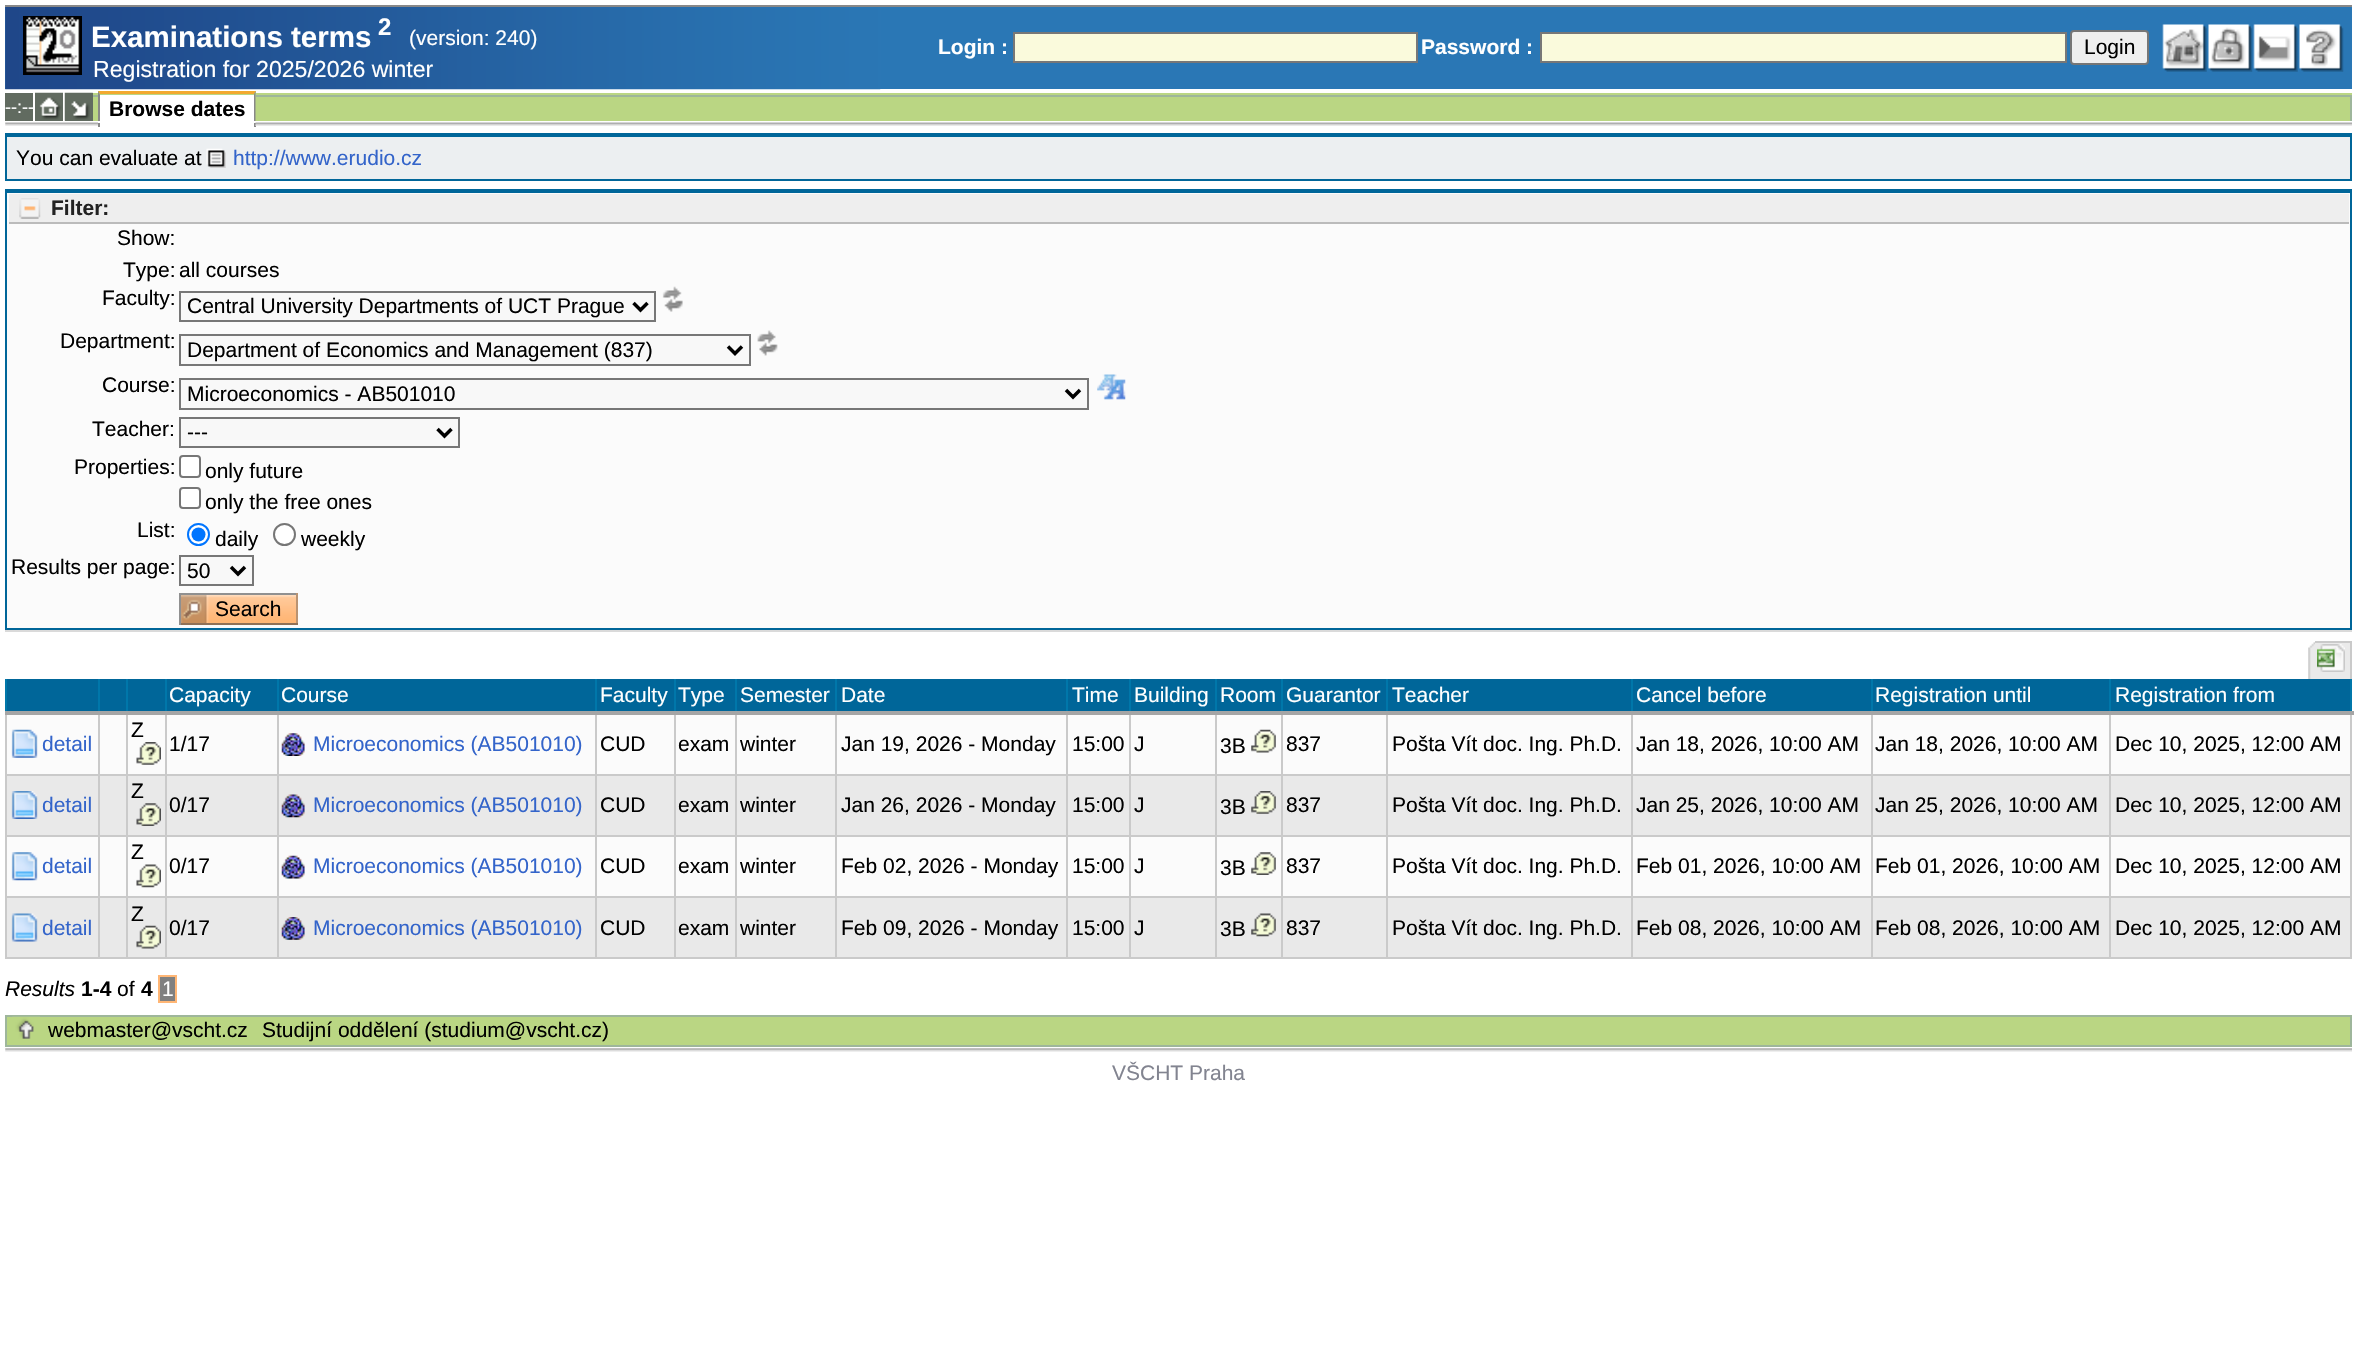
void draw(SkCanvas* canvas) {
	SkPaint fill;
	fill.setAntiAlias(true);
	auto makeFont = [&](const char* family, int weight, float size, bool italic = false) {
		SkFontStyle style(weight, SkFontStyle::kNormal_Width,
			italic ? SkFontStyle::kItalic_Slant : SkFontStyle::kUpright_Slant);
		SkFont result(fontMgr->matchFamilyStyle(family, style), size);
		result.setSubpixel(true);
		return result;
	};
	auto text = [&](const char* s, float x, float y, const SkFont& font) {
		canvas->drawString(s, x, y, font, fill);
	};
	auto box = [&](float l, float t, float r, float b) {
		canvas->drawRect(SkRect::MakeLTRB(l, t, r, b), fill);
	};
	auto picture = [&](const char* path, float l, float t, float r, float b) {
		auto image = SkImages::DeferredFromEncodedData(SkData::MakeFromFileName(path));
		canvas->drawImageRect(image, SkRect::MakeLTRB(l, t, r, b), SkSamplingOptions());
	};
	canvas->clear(0xFFFFFFFF);
	fill.setColor(0xFF2A77B5);
	box(5, 7, 2352, 89);
	picture("image0.png", 5, 7, 881, 90);
	fill.setColor(0xFF888888);
	box(5, 5, 2352, 7);
	fill.setStyle(SkPaint::kStroke_Style);
	fill.setStrokeWidth(2);
	fill.setColor(0xFF000000);
	canvas->drawRect(SkRect::MakeLTRB(24, 17, 81, 74), fill);
	picture("image1.png", 25, 17, 80, 73);
	fill.setStyle(SkPaint::kFill_Style);
	fill.setColor(0xFFFAFADC);
	canvas->drawRect(SkRect::MakeLTRB(1014, 33, 1417, 62), fill);
	fill.setStyle(SkPaint::kStroke_Style);
	fill.setColor(0xFF777777);
	canvas->drawRect(SkRect::MakeLTRB(1014, 33, 1417, 62), fill);
	fill.setStyle(SkPaint::kFill_Style);
	fill.setColor(0xFFFAFADC);
	canvas->drawRect(SkRect::MakeLTRB(1541, 33, 2066, 62), fill);
	fill.setStyle(SkPaint::kStroke_Style);
	fill.setColor(0xFF777777);
	canvas->drawRect(SkRect::MakeLTRB(1541, 33, 2066, 62), fill);
	fill.setStyle(SkPaint::kFill_Style);
	fill.setColor(0xFFEFEFEF);
	canvas->drawRoundRect(SkRect::MakeLTRB(2071, 31, 2148, 64), 3, 3, fill);
	fill.setStyle(SkPaint::kStroke_Style);
	fill.setColor(0xFF767676);
	canvas->drawRoundRect(SkRect::MakeLTRB(2071, 31, 2148, 64), 3, 3, fill);
	picture("image2.png", 2162, 24, 2207, 72);
	picture("image3.png", 2208, 24, 2253, 72);
	picture("image4.png", 2253, 24, 2298, 72);
	picture("image5.png", 2299, 24, 2344, 72);
	fill.setStyle(SkPaint::kFill_Style);
	fill.setColor(0xFFBAD683);
	box(93, 91, 2352, 121);
	fill.setColor(0xFF616B60);
	box(5, 93, 33, 121);
	box(35, 120, 63, 121);
	picture("image6.png", 35, 92, 63, 120);
	box(65, 93, 93, 121);
	picture("image7.png", 64, 92, 93, 121);
	fill.setColor(0xFFFFFFFF);
	box(93, 91, 98, 93);
	fill.setColor(0xFF9EB69B);
	box(93, 95, 98, 97);
	fill.setColor(0xFFF2A92F);
	canvas->drawPath(SkPathBuilder().moveTo(98, 91).lineTo(256, 91).lineTo(254, 94).lineTo(100, 94).close().detach(), fill);
	fill.setColor(0xFF888888);
	canvas->drawPath(SkPathBuilder().moveTo(255.5f, 91).lineTo(255.5f, 121).lineTo(254, 121).lineTo(254, 94.5f).close().detach(), fill);
	canvas->drawPath(SkPathBuilder().moveTo(98, 121).lineTo(98, 91).lineTo(100, 94.5f).lineTo(100, 121).close().detach(), fill);
	fill.setColor(0xFFFFFFFF);
	box(100, 95, 254, 121);
	box(256, 91, 2352, 93);
	fill.setColor(0xFF9EB69B);
	box(256, 95, 2352, 97);
	box(2350, 95, 2352, 121);
	picture("image8.png", 5, 122, 98, 126);
	fill.setColor(0xFF888888);
	box(254, 123, 256, 127);
	box(98, 123, 100, 127);
	picture("image9.png", 255, 122, 2352, 126);
	fill.setColor(0xFFECEFF1);
	box(7, 137, 2350, 179);
	fill.setColor(0xFF006699);
	box(5, 133, 2352, 137);
	box(2350, 133, 2352, 180);
	box(5, 179, 2352, 181);
	box(5, 133, 7, 180);
	picture("image10.png", 206, 148, 226, 168);
	fill.setColor(0xFFFBFBFB);
	box(7, 193, 2350, 628);
	fill.setColor(0xFF006699);
	box(5, 189, 2352, 193);
	box(2350, 189, 2352, 630);
	box(5, 628, 2352, 630);
	box(5, 189, 7, 630);
	fill.setColor(0xFFEEEEEE);
	box(9, 194, 2349, 222);
	fill.setColor(0xFFBBBBBB);
	box(9, 222, 2349, 224);
	picture("image11.png", 19, 198, 41, 219);
	fill.setColor(0xFFF8F8F8);
	canvas->drawRect(SkRect::MakeLTRB(180, 292, 655, 321), fill);
	fill.setStyle(SkPaint::kStroke_Style);
	fill.setColor(0xFF777777);
	canvas->drawRect(SkRect::MakeLTRB(180, 292, 655, 321), fill);
	fill.setStrokeWidth(3.5f);
	fill.setColor(0xFF000000);
	canvas->drawPath(SkPathBuilder().moveTo(633.5f, 303).lineTo(640.5f, 310).lineTo(647.5f, 303).detach(), fill);
	picture("image12.png", 662, 286, 683, 312);
	fill.setStyle(SkPaint::kFill_Style);
	fill.setColor(0xFFF8F8F8);
	canvas->drawRect(SkRect::MakeLTRB(180, 335, 750, 365), fill);
	fill.setStyle(SkPaint::kStroke_Style);
	fill.setStrokeWidth(2);
	fill.setColor(0xFF777777);
	canvas->drawRect(SkRect::MakeLTRB(180, 335, 750, 365), fill);
	fill.setStrokeWidth(3.5f);
	fill.setColor(0xFF000000);
	canvas->drawPath(SkPathBuilder().moveTo(728, 346.5f).lineTo(735, 353.5f).lineTo(742, 346.5f).detach(), fill);
	picture("image13.png", 757, 330, 778, 356);
	fill.setStyle(SkPaint::kFill_Style);
	fill.setColor(0xFFF8F8F8);
	canvas->drawRect(SkRect::MakeLTRB(180, 379, 1088, 409), fill);
	fill.setStyle(SkPaint::kStroke_Style);
	fill.setStrokeWidth(2);
	fill.setColor(0xFF777777);
	canvas->drawRect(SkRect::MakeLTRB(180, 379, 1088, 409), fill);
	fill.setStrokeWidth(3.5f);
	fill.setColor(0xFF000000);
	canvas->drawPath(SkPathBuilder().moveTo(1066, 390).lineTo(1073, 397).lineTo(1080, 390).detach(), fill);
	picture("image14.png", 1097, 374, 1126, 400);
	fill.setStyle(SkPaint::kFill_Style);
	fill.setColor(0xFFF8F8F8);
	canvas->drawRect(SkRect::MakeLTRB(180, 418, 459, 447), fill);
	fill.setStyle(SkPaint::kStroke_Style);
	fill.setStrokeWidth(2);
	fill.setColor(0xFF777777);
	canvas->drawRect(SkRect::MakeLTRB(180, 418, 459, 447), fill);
	fill.setStrokeWidth(3.5f);
	fill.setColor(0xFF000000);
	canvas->drawPath(SkPathBuilder().moveTo(437.5f, 429).lineTo(444.5f, 436).lineTo(451.5f, 429).detach(), fill);
	fill.setStyle(SkPaint::kFill_Style);
	fill.setColor(0xFFFFFFFF);
	canvas->drawRoundRect(SkRect::MakeLTRB(180, 456, 200, 477), 3, 3, fill);
	fill.setStyle(SkPaint::kStroke_Style);
	fill.setStrokeWidth(2);
	fill.setColor(0xFF767676);
	canvas->drawRoundRect(SkRect::MakeLTRB(180, 456, 200, 477), 3, 3, fill);
	fill.setStyle(SkPaint::kFill_Style);
	fill.setColor(0xFFFFFFFF);
	canvas->drawRoundRect(SkRect::MakeLTRB(180, 488, 200, 508), 3, 3, fill);
	fill.setStyle(SkPaint::kStroke_Style);
	fill.setColor(0xFF767676);
	canvas->drawRoundRect(SkRect::MakeLTRB(180, 488, 200, 508), 3, 3, fill);
	fill.setStyle(SkPaint::kFill_Style);
	fill.setColor(0xFFFFFFFF);
	canvas->drawCircle(198.5f, 534.5f, 10.5f, fill);
	fill.setStyle(SkPaint::kStroke_Style);
	fill.setColor(0xFF0075FF);
	canvas->drawCircle(198.5f, 534.5f, 10.5f, fill);
	fill.setStyle(SkPaint::kFill_Style);
	canvas->drawCircle(198.5f, 534.5f, 7, fill);
	fill.setColor(0xFFFFFFFF);
	canvas->drawCircle(284.5f, 534.5f, 10.5f, fill);
	fill.setStyle(SkPaint::kStroke_Style);
	fill.setColor(0xFF767676);
	canvas->drawCircle(284.5f, 534.5f, 10.5f, fill);
	fill.setStyle(SkPaint::kFill_Style);
	fill.setColor(0xFFF8F8F8);
	canvas->drawRect(SkRect::MakeLTRB(180, 556, 253, 585), fill);
	fill.setStyle(SkPaint::kStroke_Style);
	fill.setColor(0xFF777777);
	canvas->drawRect(SkRect::MakeLTRB(180, 556, 253, 585), fill);
	fill.setStrokeWidth(3.5f);
	fill.setColor(0xFF000000);
	canvas->drawPath(SkPathBuilder().moveTo(231, 567).lineTo(238, 574).lineTo(245, 567).detach(), fill);
	picture("image15.png", 181, 595, 296, 623);
	fill.setStyle(SkPaint::kFill_Style);
	fill.setColor(0xFF909090);
	box(179, 593, 298, 595);
	fill.setColor(0xFFB99372);
	box(296, 593, 298, 625);
	fill.setColor(0xFF8F7056);
	box(179, 623, 298, 625);
	fill.setColor(0xFF909090);
	box(179, 593, 181, 625);
	fill.setColor(0xFFDADADA);
	box(5, 630, 2352, 632);
	picture("image16.png", 2308, 642, 2315, 679);
	fill.setColor(0xFFEAEAEA);
	box(2315, 643, 2350, 679);
	fill.setColor(0xFFCACACA);
	box(2315, 641, 2352, 643);
	box(2350, 641, 2352, 679);
	picture("image17.png", 2317, 644, 2345, 672);
	fill.setColor(0xFF006699);
	box(7, 679, 2350, 711);
	fill.setColor(0xFFCACACA);
	box(5, 774, 2352, 776);
	box(5, 835, 2352, 837);
	box(5, 896, 2352, 898);
	box(2350, 896, 2352, 959);
	box(5, 957, 2352, 959);
	box(5, 896, 7, 959);
	box(5, 835, 7, 898);
	box(5, 712, 7, 837);
	fill.setColor(0xFF0077AA);
	box(5, 679, 7, 714);
	fill.setColor(0xFFFBFBFB);
	box(7, 715, 2350, 774);
	fill.setColor(0xFFE9E9E9);
	box(7, 776, 2350, 835);
	fill.setColor(0xFFFBFBFB);
	box(7, 837, 2350, 896);
	fill.setColor(0xFFE9E9E9);
	box(7, 898, 2350, 957);
	fill.setColor(0xFFCACACA);
	box(98, 712, 100, 959);
	fill.setColor(0xFF0077AA);
	box(98, 679, 100, 714);
	fill.setColor(0xFFCACACA);
	box(126, 712, 128, 959);
	fill.setColor(0xFF0077AA);
	box(126, 679, 128, 714);
	fill.setColor(0xFFCACACA);
	box(165, 712, 167, 959);
	fill.setColor(0xFF0077AA);
	box(165, 679, 167, 714);
	fill.setColor(0xFFCACACA);
	box(277, 712, 279, 959);
	fill.setColor(0xFF0077AA);
	box(277, 679, 279, 714);
	fill.setColor(0xFFCACACA);
	box(595, 712, 597, 959);
	fill.setColor(0xFF0077AA);
	box(595, 679, 597, 714);
	fill.setColor(0xFFCACACA);
	box(674, 712, 676, 959);
	fill.setColor(0xFF0077AA);
	box(674, 679, 676, 714);
	fill.setColor(0xFFCACACA);
	box(735, 712, 737, 959);
	fill.setColor(0xFF0077AA);
	box(735, 679, 737, 714);
	fill.setColor(0xFFCACACA);
	box(835, 712, 837, 959);
	fill.setColor(0xFF0077AA);
	box(835, 679, 837, 714);
	fill.setColor(0xFFCACACA);
	box(1066, 712, 1068, 959);
	fill.setColor(0xFF0077AA);
	box(1066, 679, 1068, 714);
	fill.setColor(0xFFCACACA);
	box(1129, 712, 1131, 959);
	fill.setColor(0xFF0077AA);
	box(1129, 679, 1131, 714);
	fill.setColor(0xFFCACACA);
	box(1215, 712, 1217, 959);
	fill.setColor(0xFF0077AA);
	box(1215, 679, 1217, 714);
	fill.setColor(0xFFCACACA);
	box(1281, 712, 1283, 959);
	fill.setColor(0xFF0077AA);
	box(1281, 679, 1283, 714);
	fill.setColor(0xFFCACACA);
	box(1386, 712, 1388, 959);
	fill.setColor(0xFF0077AA);
	box(1386, 679, 1388, 714);
	fill.setColor(0xFFCACACA);
	box(1631, 712, 1633, 959);
	fill.setColor(0xFF0077AA);
	box(1631, 679, 1633, 714);
	fill.setColor(0xFFCACACA);
	box(1871, 712, 1873, 959);
	fill.setColor(0xFF0077AA);
	box(1871, 679, 1873, 714);
	fill.setColor(0xFFCACACA);
	box(2350, 835, 2352, 898);
	box(2350, 712, 2352, 837);
	fill.setColor(0xFF0077AA);
	box(2350, 679, 2352, 714);
	fill.setColor(0xFFCACACA);
	box(2109, 712, 2111, 959);
	fill.setColor(0xFF0077AA);
	box(2109, 679, 2111, 714);
	fill.setColor(0xFFA5A5A5);
	box(5, 711, 2354, 715);
	picture("image18.png", 136, 742, 161, 765);
	picture("image19.png", 11, 729, 38, 758);
	picture("image20.png", 281, 733, 305, 756);
	picture("image21.png", 1251, 729, 1276, 753);
	picture("image22.png", 136, 803, 161, 826);
	picture("image23.png", 11, 791, 38, 819);
	picture("image24.png", 281, 794, 305, 818);
	picture("image25.png", 1251, 791, 1276, 814);
	picture("image26.png", 136, 864, 161, 888);
	picture("image27.png", 11, 852, 38, 881);
	picture("image28.png", 281, 855, 305, 879);
	picture("image29.png", 1251, 852, 1276, 875);
	picture("image30.png", 136, 925, 161, 949);
	picture("image31.png", 11, 913, 38, 942);
	picture("image32.png", 281, 917, 305, 940);
	picture("image33.png", 1251, 913, 1276, 937);
	fill.setColor(0xFF808080);
	canvas->drawRect(SkRect::MakeLTRB(159, 976, 176, 1002), fill);
	fill.setStyle(SkPaint::kStroke_Style);
	fill.setStrokeWidth(2);
	fill.setColor(0xFFFFB675);
	canvas->drawRect(SkRect::MakeLTRB(159, 976, 176, 1002), fill);
	fill.setColor(0xFF9EB69B);
	canvas->drawRect(SkRect::MakeLTRB(6, 1016, 2351, 1046), fill);
	fill.setStyle(SkPaint::kFill_Style);
	fill.setColor(0xFFBAD683);
	box(7, 1017, 2350, 1045);
	picture("image34.png", 12, 1016, 40, 1039);
	picture("image35.png", 5, 1048, 2352, 1052);
	auto font1 = makeFont("Liberation Sans", 700, 29.5f);
	fill.setColor(0xFFFFFFFF);
	text("Examinations terms", 91, 47, font1);
	auto font2 = makeFont("Liberation Sans", 700, 24);
	text("2", 378, 35, font2);
	auto font3 = makeFont("Liberation Sans", 400, 21);
	text("(version: 240)", 409, 45, font3);
	auto font4 = makeFont("Liberation Sans", 400, 23.1f);
	text("Registration for 2025/2026 winter", 93, 77, font4);
	auto font5 = makeFont("Liberation Sans", 700, 21);
	text("Login :", 938, 54, font5);
	text("Password :", 1421, 54, font5);
	fill.setColor(0xFF000000);
	text("Login", 2084, 54, font3);
	auto font6 = makeFont("Liberation Sans", 400, 18);
	fill.setColor(0xFFFFFFFF);
	text("--:--", 5, 113, font6);
	fill.setColor(0xFF000000);
	text("Browse dates", 109, 116, font5);
	text("You can evaluate at", 16, 165, font3);
	fill.setColor(0xFF3364CA);
	text("http://www.erudio.cz", 233, 165, font3);
	fill.setColor(0xFF222222);
	text("Filter:", 51, 215, font5);
	fill.setColor(0xFF000000);
	text("Show:", 117, 245, font3);
	text("Type:", 123, 277, font3);
	text("all courses", 179, 277, font3);
	text("Faculty:", 102, 305, font3);
	text("Central University Departments of UCT Prague", 187, 313, font3);
	text("Department:", 60, 348, font3);
	text("Department of Economics and Management (837)", 187, 357, font3);
	text("Course:", 102, 392, font3);
	text("Microeconomics - AB501010", 187, 401, font3);
	text("Teacher:", 92, 436, font3);
	text("---", 187, 439, font3);
	text("Properties:", 74, 474, font3);
	text("only future", 205, 478, font3);
	text("only the free ones", 205, 509, font3);
	text("List:", 137, 537, font3);
	text("daily", 215, 546, font3);
	text("weekly", 301, 546, font3);
	text("Results per page:", 11, 574, font3);
	text("50", 187, 578, font3);
	text("Search", 215, 616, font3);
	fill.setColor(0xFFFFFFFF);
	text("Capacity", 169, 702, font3);
	text("Course", 281, 702, font3);
	text("Faculty", 600, 702, font3);
	text("Type", 678, 702, font3);
	text("Semester", 740, 702, font3);
	text("Date", 841, 702, font3);
	text("Time", 1072, 702, font3);
	text("Building", 1134, 702, font3);
	text("Room", 1220, 702, font3);
	text("Guarantor", 1286, 702, font3);
	text("Teacher", 1392, 702, font3);
	text("Cancel before", 1636, 702, font3);
	text("Registration until", 1875, 702, font3);
	text("Registration from", 2115, 702, font3);
	fill.setColor(0xFF000000);
	text("Z", 131, 737, font3);
	fill.setColor(0xFF3364CA);
	text("detail", 42, 751, font3);
	fill.setColor(0xFF000000);
	text("1/17", 169, 751, font3);
	fill.setColor(0xFF3364CA);
	text("Microeconomics (AB501010)", 313, 751, font3);
	fill.setColor(0xFF000000);
	text("CUD", 600, 751, font3);
	text("exam", 678, 751, font3);
	text("winter", 740, 751, font3);
	text("Jan 19, 2026 - Monday", 841, 751, font3);
	text("15:00", 1072, 751, font3);
	text("J", 1134, 751, font3);
	text("3B", 1220, 753, font3);
	text("837", 1286, 751, font3);
	text("Pošta Vít doc. Ing. Ph.D.", 1392, 751, font3);
	text("Jan 18, 2026, 10:00 AM", 1636, 751, font3);
	text("Jan 18, 2026, 10:00 AM", 1875, 751, font3);
	text("Dec 10, 2025, 12:00 AM", 2115, 751, font3);
	text("Z", 131, 798, font3);
	fill.setColor(0xFF3364CA);
	text("detail", 42, 812, font3);
	fill.setColor(0xFF000000);
	text("0/17", 169, 812, font3);
	fill.setColor(0xFF3364CA);
	text("Microeconomics (AB501010)", 313, 812, font3);
	fill.setColor(0xFF000000);
	text("CUD", 600, 812, font3);
	text("exam", 678, 812, font3);
	text("winter", 740, 812, font3);
	text("Jan 26, 2026 - Monday", 841, 812, font3);
	text("15:00", 1072, 812, font3);
	text("J", 1134, 812, font3);
	text("3B", 1220, 814, font3);
	text("837", 1286, 812, font3);
	text("Pošta Vít doc. Ing. Ph.D.", 1392, 812, font3);
	text("Jan 25, 2026, 10:00 AM", 1636, 812, font3);
	text("Jan 25, 2026, 10:00 AM", 1875, 812, font3);
	text("Dec 10, 2025, 12:00 AM", 2115, 812, font3);
	text("Z", 131, 859, font3);
	fill.setColor(0xFF3364CA);
	text("detail", 42, 873, font3);
	fill.setColor(0xFF000000);
	text("0/17", 169, 873, font3);
	fill.setColor(0xFF3364CA);
	text("Microeconomics (AB501010)", 313, 873, font3);
	fill.setColor(0xFF000000);
	text("CUD", 600, 873, font3);
	text("exam", 678, 873, font3);
	text("winter", 740, 873, font3);
	text("Feb 02, 2026 - Monday", 841, 873, font3);
	text("15:00", 1072, 873, font3);
	text("J", 1134, 873, font3);
	text("3B", 1220, 875, font3);
	text("837", 1286, 873, font3);
	text("Pošta Vít doc. Ing. Ph.D.", 1392, 873, font3);
	text("Feb 01, 2026, 10:00 AM", 1636, 873, font3);
	text("Feb 01, 2026, 10:00 AM", 1875, 873, font3);
	text("Dec 10, 2025, 12:00 AM", 2115, 873, font3);
	text("Z", 131, 921, font3);
	fill.setColor(0xFF3364CA);
	text("detail", 42, 935, font3);
	fill.setColor(0xFF000000);
	text("0/17", 169, 935, font3);
	fill.setColor(0xFF3364CA);
	text("Microeconomics (AB501010)", 313, 935, font3);
	fill.setColor(0xFF000000);
	text("CUD", 600, 935, font3);
	text("exam", 678, 935, font3);
	text("winter", 740, 935, font3);
	text("Feb 09, 2026 - Monday", 841, 935, font3);
	text("15:00", 1072, 935, font3);
	text("J", 1134, 935, font3);
	text("3B", 1220, 936, font3);
	text("837", 1286, 935, font3);
	text("Pošta Vít doc. Ing. Ph.D.", 1392, 935, font3);
	text("Feb 08, 2026, 10:00 AM", 1636, 935, font3);
	text("Feb 08, 2026, 10:00 AM", 1875, 935, font3);
	text("Dec 10, 2025, 12:00 AM", 2115, 935, font3);
	auto font7 = makeFont("Liberation Sans", 400, 21, true);
	text("Results", 5, 996, font7);
	text("1-4", 81, 996, font5);
	text("of", 117, 996, font3);
	text("4", 141, 996, font5);
	fill.setColor(0xFFFFFFFF);
	text("1", 162, 996, font3);
	fill.setColor(0xFF000000);
	text("webmaster@vscht.cz", 48, 1037, font3);
	text("Studijní oddělení (studium@vscht.cz)", 262, 1037, font3);
	fill.setColor(0xFF828490);
	text("VŠCHT Praha", 1112, 1080, font3);
}
